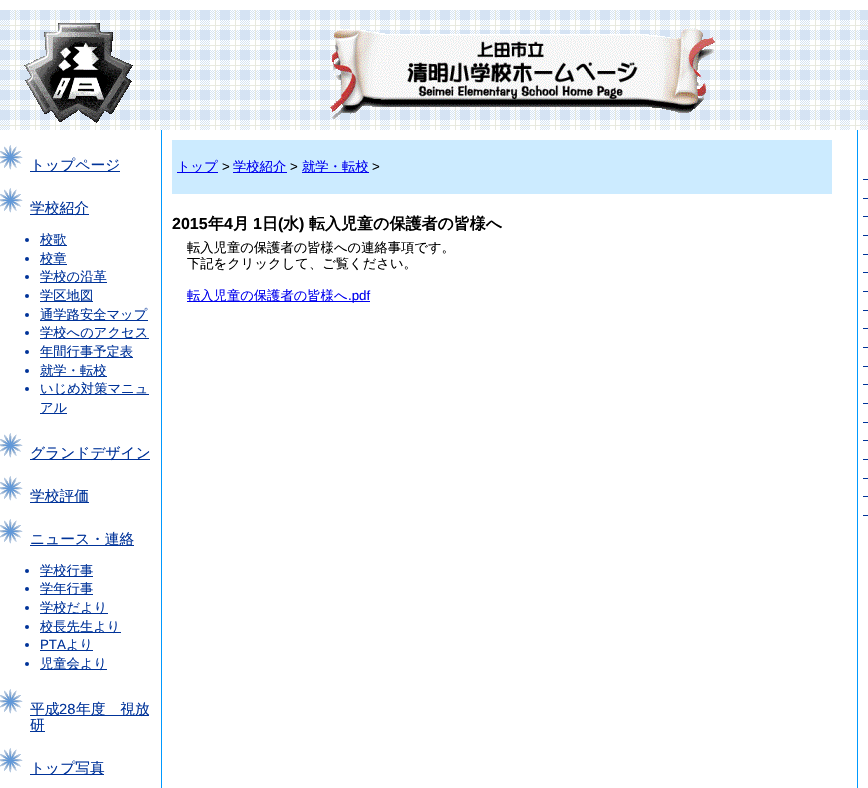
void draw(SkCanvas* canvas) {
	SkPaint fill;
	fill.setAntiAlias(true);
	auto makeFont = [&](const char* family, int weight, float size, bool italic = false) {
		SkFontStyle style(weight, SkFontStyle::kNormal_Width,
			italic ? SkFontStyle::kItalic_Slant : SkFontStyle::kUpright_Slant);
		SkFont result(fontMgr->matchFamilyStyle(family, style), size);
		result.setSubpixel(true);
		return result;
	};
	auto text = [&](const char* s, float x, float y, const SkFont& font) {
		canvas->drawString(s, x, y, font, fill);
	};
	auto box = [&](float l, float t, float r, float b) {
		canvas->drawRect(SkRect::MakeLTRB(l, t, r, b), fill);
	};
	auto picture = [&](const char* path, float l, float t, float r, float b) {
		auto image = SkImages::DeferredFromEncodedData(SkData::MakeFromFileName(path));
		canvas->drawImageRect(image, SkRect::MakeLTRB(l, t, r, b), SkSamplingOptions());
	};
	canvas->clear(0xFFFFFFFF);
	picture("image0.png", 0, 10, 868, 130);
	picture("image1.png", 24, 23, 133, 123);
	picture("image2.png", 330, 28, 715, 119);
	picture("image3.png", 0, 145, 23, 170);
	fill.setColor(0xFF003399);
	box(30, 171, 120, 172);
	picture("image3.png", 0, 188, 23, 213);
	box(30, 214, 89, 215);
	canvas->drawCircle(27, 240, 2, fill);
	box(40, 245, 67, 246);
	canvas->drawCircle(27, 259, 2, fill);
	box(40, 264, 67, 265);
	canvas->drawCircle(27, 277, 2, fill);
	box(40, 282, 107, 283);
	canvas->drawCircle(27, 296, 2, fill);
	box(40, 301, 93, 302);
	canvas->drawCircle(27, 315, 2, fill);
	box(40, 320, 148, 321);
	canvas->drawCircle(27, 333, 2, fill);
	box(40, 338, 149, 339);
	canvas->drawCircle(27, 352, 2, fill);
	box(40, 357, 133, 358);
	canvas->drawCircle(27, 371, 2, fill);
	box(40, 376, 107, 377);
	canvas->drawCircle(27, 389, 2, fill);
	box(40, 394, 149, 395);
	box(40, 413, 67, 414);
	picture("image3.png", 0, 433, 23, 458);
	box(30, 459, 150, 460);
	picture("image3.png", 0, 476, 23, 501);
	box(30, 502, 89, 503);
	picture("image3.png", 0, 519, 23, 544);
	box(30, 545, 134, 546);
	canvas->drawCircle(27, 571, 2, fill);
	box(40, 576, 93, 577);
	canvas->drawCircle(27, 589, 2, fill);
	box(40, 594, 93, 595);
	canvas->drawCircle(27, 608, 2, fill);
	box(40, 613, 108, 614);
	canvas->drawCircle(27, 627, 2, fill);
	box(40, 632, 121, 633);
	canvas->drawCircle(27, 645, 2, fill);
	box(40, 650, 93, 651);
	canvas->drawCircle(27, 664, 2, fill);
	box(40, 669, 107, 670);
	picture("image3.png", 0, 689, 23, 714);
	box(30, 715, 149, 716);
	box(30, 731, 45, 732);
	picture("image3.png", 0, 748, 23, 773);
	box(30, 774, 104, 775);
	fill.setColor(0xFF0099FF);
	box(857, 130, 858, 788);
	box(161, 130, 162, 788);
	fill.setColor(0xFFCCEBFF);
	box(172, 140, 832, 194);
	fill.setColor(0xFF0000EE);
	box(177, 172, 218, 173);
	box(233, 172, 287, 173);
	box(302, 172, 369, 173);
	box(187, 301, 370, 302);
	fill.setColor(0xFF003399);
	box(863, 179, 868, 180);
	box(863, 198, 868, 199);
	box(863, 216, 868, 217);
	box(863, 235, 868, 236);
	box(863, 254, 868, 255);
	box(863, 272, 868, 273);
	box(863, 291, 868, 292);
	box(863, 310, 868, 311);
	box(863, 328, 868, 329);
	box(863, 347, 868, 348);
	box(863, 366, 868, 367);
	box(863, 384, 868, 385);
	box(863, 403, 868, 404);
	box(863, 422, 868, 423);
	box(863, 440, 868, 441);
	box(863, 459, 868, 460);
	box(863, 478, 868, 479);
	box(863, 496, 868, 497);
	box(863, 515, 868, 516);
	auto font1 = makeFont("WenQuanYi Zen Hei", 500, 14.75f);
	text("トップページ", 30, 170, font1);
	text("学校紹介", 30, 213, font1);
	auto font2 = makeFont("WenQuanYi Zen Hei", 500, 13.3f);
	text("校歌", 40, 244, font2);
	text("校章", 40, 263, font2);
	text("学校の沿革", 40, 281, font2);
	text("学区地図", 40, 300, font2);
	text("通学路安全マップ", 40, 319, font2);
	text("学校へのアクセス", 40, 337, font2);
	text("年間行事予定表", 40, 356, font2);
	text("就学・転校", 40, 375, font2);
	text("いじめ対策マニュ", 40, 393, font2);
	text("アル", 40, 412, font2);
	text("グランドデザイン", 30, 458, font1);
	text("学校評価", 30, 501, font1);
	text("ニュース・連絡", 30, 544, font1);
	text("学校行事", 40, 575, font2);
	text("学年行事", 40, 593, font2);
	text("学校だより", 40, 612, font2);
	text("校長先生より", 40, 631, font2);
	auto font3 = makeFont("Liberation Sans", 400, 13.3f);
	text("PTA", 40, 649, font3);
	text("より", 66, 649, font2);
	text("児童会より", 40, 668, font2);
	text("平成", 30, 714, font1);
	auto font4 = makeFont("Liberation Sans", 400, 14.75f);
	text("28", 59, 714, font4);
	text("年度　視放", 76, 714, font1);
	text("研", 30, 730, font1);
	text("トップ写真", 30, 773, font1);
	fill.setColor(0xFF0000EE);
	text("トップ", 177, 171, font2);
	fill.setColor(0xFF000000);
	text(">", 222, 171, font3);
	fill.setColor(0xFF0000EE);
	text("学校紹介", 233, 171, font2);
	fill.setColor(0xFF000000);
	text(">", 290, 171, font3);
	fill.setColor(0xFF0000EE);
	text("就学・転校", 302, 171, font2);
	fill.setColor(0xFF000000);
	text(">", 372, 171, font3);
	auto font5 = makeFont("Liberation Sans", 700, 16);
	text("2015", 172, 229, font5);
	auto font6 = makeFont("WenQuanYi Zen Hei", 700, 16);
	text("年", 208, 229, font6);
	text("4", 224, 229, font5);
	text("月", 233, 229, font6);
	text("1", 253, 229, font5);
	text("日", 262, 229, font6);
	text("(", 278, 229, font5);
	text("水", 283, 229, font6);
	text(")", 299, 229, font5);
	text("転入児童の保護者の皆様へ", 309, 229, font6);
	text("転入児童の保護者の皆様への連絡事項です。", 187, 252, font2);
	text("下記をクリックして、ご覧ください。", 187, 268, font2);
	fill.setColor(0xFF0000EE);
	text("転入児童の保護者の皆様へ", 187, 300, font2);
	text(".pdf", 348, 300, font3);
}
